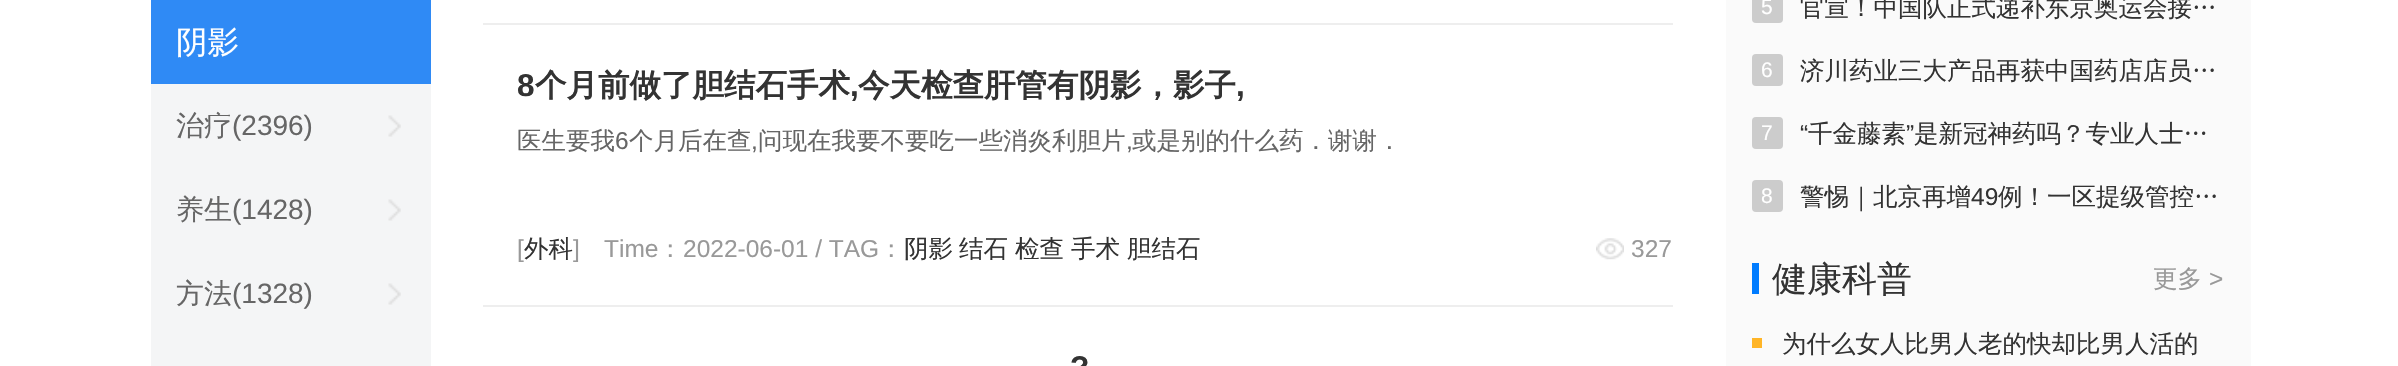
void draw(SkCanvas* canvas) {
	SkPaint fill;
	fill.setAntiAlias(true);
	auto makeFont = [&](const char* family, int weight, float size, bool italic = false) {
		SkFontStyle style(weight, SkFontStyle::kNormal_Width,
			italic ? SkFontStyle::kItalic_Slant : SkFontStyle::kUpright_Slant);
		SkFont result(fontMgr->matchFamilyStyle(family, style), size);
		result.setSubpixel(true);
		return result;
	};
	auto text = [&](const char* s, float x, float y, const SkFont& font) {
		canvas->drawString(s, x, y, font, fill);
	};
	auto box = [&](float l, float t, float r, float b) {
		canvas->drawRect(SkRect::MakeLTRB(l, t, r, b), fill);
	};
	auto roundBox = [&](float l, float t, float r, float b, float radius) {
		canvas->drawRoundRect(SkRect::MakeLTRB(l, t, r, b), radius, radius, fill);
	};
	auto picture = [&](const char* path, float l, float t, float r, float b) {
		auto image = SkImages::DeferredFromEncodedData(SkData::MakeFromFileName(path));
		canvas->drawImageRect(image, SkRect::MakeLTRB(l, t, r, b), SkSamplingOptions());
	};
	canvas->clear(0xFFFFFFFF);
	fill.setColor(0xFFF4F5F6);
	box(151, 84, 431, 366);
	fill.setColor(0xFF2F8AF5);
	box(151, 0, 431, 84);
	picture("image0.png", 388, 115, 401, 137);
	picture("image0.png", 388, 199, 401, 221);
	picture("image0.png", 388, 283, 401, 305);
	fill.setColor(0xFFEEEEEE);
	box(483, 23, 1673, 25);
	picture("image1.png", 1596, 238, 1624, 260);
	box(483, 305, 1673, 307);
	fill.setColor(0xFFFAFAFA);
	box(1726, 0, 2251, 366);
	fill.setColor(0xFFCCCCCC);
	roundBox(1752, -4, 1783, 23, 4);
	roundBox(1752, 54, 1783, 86, 4);
	roundBox(1752, 117, 1783, 149, 4);
	roundBox(1752, 180, 1783, 212, 4);
	fill.setColor(0xFF007CFF);
	box(1752, 263, 1759, 294);
	fill.setColor(0xFFFFB527);
	box(1752, 338, 1762, 348);
	auto font1 = makeFont("WenQuanYi Zen Hei", 500, 31.5f);
	fill.setColor(0xFFFFFFFF);
	text("阴影", 176, 53, font1);
	auto font2 = makeFont("WenQuanYi Zen Hei", 500, 28);
	fill.setColor(0xFF666666);
	text("治疗", 176, 135, font2);
	auto font3 = makeFont("Liberation Sans", 400, 28);
	text("(2396)", 232, 135, font3);
	text("养生", 176, 219, font2);
	text("(1428)", 232, 219, font3);
	text("方法", 176, 303, font2);
	text("(1328)", 232, 303, font3);
	auto font4 = makeFont("Liberation Sans", 700, 31.5f);
	fill.setColor(0xFF333333);
	text("8", 517, 96, font4);
	auto font5 = makeFont("WenQuanYi Zen Hei", 700, 31.5f);
	text("个月前做了胆结石手术", 535, 96, font5);
	text(",", 850, 96, font4);
	text("今天检查肝管有阴影，影子", 858, 96, font5);
	text(",", 1236, 96, font4);
	auto font6 = makeFont("WenQuanYi Zen Hei", 500, 24.5f);
	fill.setColor(0xFF666666);
	text("医生要我", 517, 149, font6);
	auto font7 = makeFont("Liberation Sans", 400, 24.5f);
	text("6", 615, 149, font7);
	text("个月后在查", 629, 149, font6);
	text(",", 751, 149, font7);
	text("问现在我要不要吃一些消炎利胆片", 758, 149, font6);
	text(",", 1126, 149, font7);
	text("或是别的什么药．谢谢．", 1132, 149, font6);
	fill.setColor(0xFF999999);
	text("[", 517, 257, font7);
	fill.setColor(0xFF333333);
	text("外科", 524, 257, font6);
	fill.setColor(0xFF999999);
	text("]", 573, 257, font7);
	text("Time", 604, 257, font7);
	text("：", 658, 257, font6);
	text("2022-06-01 / TAG", 683, 257, font7);
	text("：", 879, 257, font6);
	fill.setColor(0xFF333333);
	text("阴影", 904, 257, font6);
	text("结石", 959, 257, font6);
	text("检查", 1015, 257, font6);
	text("手术", 1071, 257, font6);
	text("胆结石", 1127, 257, font6);
	fill.setColor(0xFF999999);
	text("327", 1631, 257, font7);
	fill.setColor(0xFF333333);
	text("?", 1070, 378, font4);
	auto font8 = makeFont("Liberation Sans", 400, 21);
	fill.setColor(0xFFFFFFFF);
	text("5", 1761, 14, font8);
	fill.setColor(0xFF333333);
	text("官宣！中国队正式递补东京奥运会接…", 1800, 16, font6);
	fill.setColor(0xFFFFFFFF);
	text("6", 1761, 77, font8);
	fill.setColor(0xFF333333);
	text("济川药业三大产品再获中国药店店员…", 1800, 79, font6);
	fill.setColor(0xFFFFFFFF);
	text("7", 1761, 140, font8);
	fill.setColor(0xFF333333);
	text("“", 1800, 142, font7);
	text("千金藤素", 1808, 142, font6);
	text("”", 1906, 142, font7);
	text("是新冠神药吗？专业人士…", 1914, 142, font6);
	fill.setColor(0xFFFFFFFF);
	text("8", 1761, 203, font8);
	fill.setColor(0xFF333333);
	text("警惕｜北京再增", 1800, 205, font6);
	text("49", 1971, 205, font7);
	text("例！一区提级管控…", 1998, 205, font6);
	auto font9 = makeFont("WenQuanYi Zen Hei", 500, 35);
	text("健康科普", 1772, 291, font9);
	fill.setColor(0xFF999999);
	text("更多", 2153, 287, font6);
	text(">", 2209, 287, font7);
	fill.setColor(0xFF333333);
	text("为什么女人比男人老的快却比男人活的", 1782, 352, font6);
}
